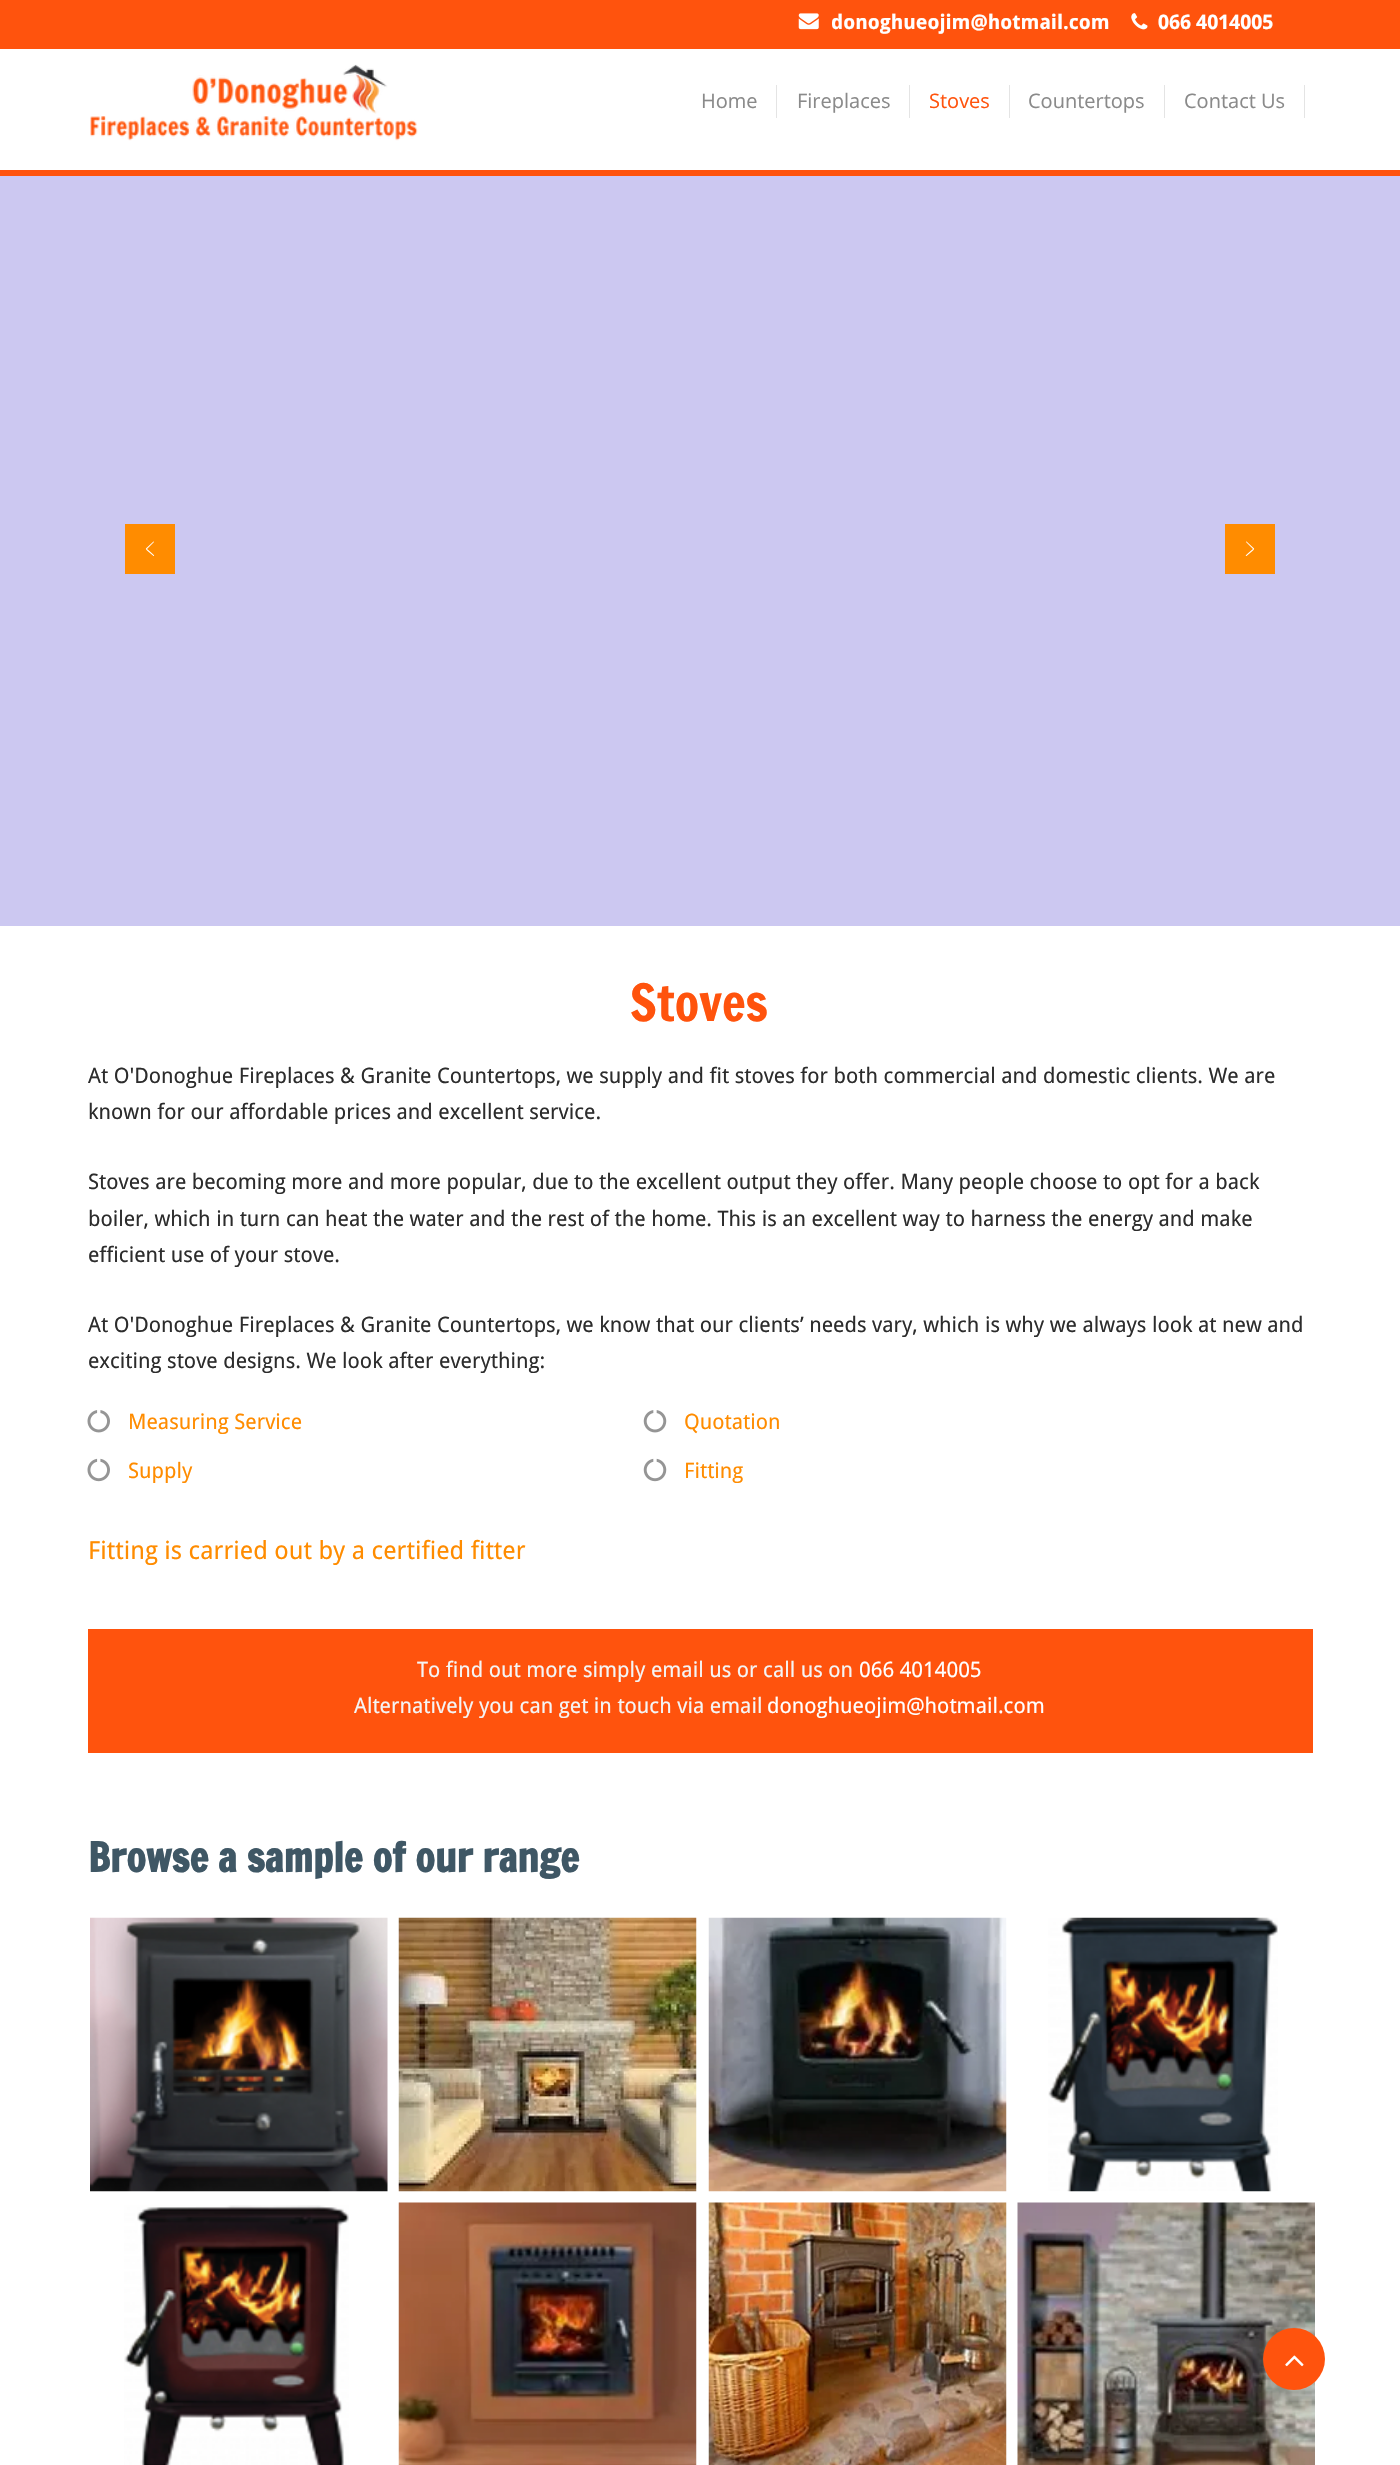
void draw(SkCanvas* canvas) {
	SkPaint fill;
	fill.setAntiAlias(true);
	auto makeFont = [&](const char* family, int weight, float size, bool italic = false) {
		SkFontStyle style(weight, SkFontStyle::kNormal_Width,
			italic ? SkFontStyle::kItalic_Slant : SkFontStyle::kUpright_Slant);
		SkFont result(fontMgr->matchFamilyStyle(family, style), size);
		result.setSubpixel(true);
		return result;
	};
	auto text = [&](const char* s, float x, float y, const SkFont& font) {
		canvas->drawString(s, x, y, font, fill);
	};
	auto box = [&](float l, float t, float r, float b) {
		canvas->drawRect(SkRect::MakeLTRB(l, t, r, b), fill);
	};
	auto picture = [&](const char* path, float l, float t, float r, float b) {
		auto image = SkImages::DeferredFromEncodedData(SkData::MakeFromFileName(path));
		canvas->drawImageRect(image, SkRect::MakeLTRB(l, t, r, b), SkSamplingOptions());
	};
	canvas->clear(0xFFFFFFFF);
	fill.setColor(0xFFFF530D);
	box(0, 0, 1400, 49);
	picture("image0.png", 798, 13, 819, 30);
	picture("image1.png", 1131, 13, 1148, 30);
	picture("image2.png", 90, 64, 418, 141);
	fill.setColor(0xFFE4E4E4);
	box(776, 85, 777, 118);
	box(909, 85, 910, 118);
	box(1009, 85, 1010, 118);
	box(1164, 85, 1165, 118);
	box(1304, 85, 1305, 118);
	fill.setColor(0xFFFF530D);
	box(0, 170, 1400, 176);
	fill.setColor(0xFFCCC8F1);
	box(0, 176, 1400, 926);
	fill.setColor(0xFFFF8C00);
	box(125, 524, 175, 574);
	fill.setColor(0xFFFFFFFF);
	canvas->drawPath(SkPathBuilder().moveTo(153.5f, 556).cubicTo(155.5f, 556, 153, 554, 147, 549).lineTo(154, 542).cubicTo(154, 542, 154, 541.5f, 153.5f, 541.5f).lineTo(147, 547.5f).cubicTo(145.5f, 549, 145.5f, 548.5f, 147, 550.5f).close().detach(), fill);
	fill.setColor(0xFFFF8C00);
	box(1225, 524, 1275, 574);
	fill.setColor(0xFFFFFFFF);
	canvas->drawPath(SkPathBuilder().moveTo(1246.5f, 556).cubicTo(1244.5f, 556, 1247, 554, 1253, 549).lineTo(1246, 542).cubicTo(1246, 542, 1246, 541.5f, 1246.5f, 541.5f).lineTo(1253, 547.5f).cubicTo(1254.5f, 549, 1254.5f, 548.5f, 1253, 550.5f).close().detach(), fill);
	picture("image3.png", 87, 1410, 110, 1433);
	picture("image4.png", 643, 1410, 667, 1433);
	picture("image5.png", 87, 1458, 110, 1482);
	picture("image6.png", 643, 1458, 667, 1482);
	fill.setColor(0xFFFF530D);
	box(88, 1629, 1313, 1753);
	picture("image7.png", 90, 1917, 388, 2192);
	picture("image8.png", 398, 1917, 697, 2192);
	picture("image9.png", 708, 1917, 1007, 2192);
	picture("image10.png", 1048, 1917, 1278, 2192);
	picture("image11.png", 124, 2205, 349, 2465);
	picture("image12.png", 398, 2202, 697, 2465);
	picture("image13.png", 708, 2202, 1007, 2465);
	picture("image14.png", 1017, 2202, 1315, 2465);
	canvas->drawCircle(1294, 2359, 31, fill);
	picture("image15.png", 1285, 2355, 1304, 2367);
	auto font1 = makeFont("Droid Sans", 700, 20);
	fill.setColor(0xFFFFFFFF);
	text("donoghueojim@hotmail.com", 831, 29, font1);
	auto font2 = makeFont("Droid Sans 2", 700, 20);
	text("066 4014005", 1158, 29, font2);
	auto font3 = makeFont("Open Sans", 400, 20);
	fill.setColor(0xFF8A8A8A);
	text("Home", 701, 108, font3);
	text("Fireplaces", 797, 108, font3);
	fill.setColor(0xFFFF530D);
	text("Stoves", 929, 108, font3);
	fill.setColor(0xFF8A8A8A);
	text("Countertops", 1028, 108, font3);
	text("Contact Us", 1184, 108, font3);
	auto font4 = makeFont("Francois One", 400, 50);
	fill.setColor(0xFFFF530D);
	text("Stoves", 630, 1021, font4);
	auto font5 = makeFont("Droid Sans", 400, 21.25f);
	fill.setColor(0xFF2C2C2C);
	text("At O'Donoghue Fireplaces & Granite Countertops, we supply and fit stoves for both commercial and domestic clients. We are", 88, 1083, font5);
	text("known for our affordable prices and excellent service.", 88, 1119, font5);
	text("Stoves are becoming more and more popular, due to the excellent output they offer. Many people choose to opt for a back", 88, 1189, font5);
	text("boiler, which in turn can heat the water and the rest of the home. This is an excellent way to harness the energy and make", 88, 1226, font5);
	text("efficient use of your stove.", 88, 1262, font5);
	text("At O'Donoghue Fireplaces & Granite Countertops, we know that our clients’ needs vary, which is why we always look at new and", 88, 1332, font5);
	text("exciting stove designs. We look after everything:", 88, 1368, font5);
	fill.setColor(0xFFFF8C00);
	text("Measuring Service", 128, 1429, font5);
	text("Quotation", 684, 1429, font5);
	text("Supply", 128, 1478, font5);
	text("Fitting", 684, 1478, font5);
	auto font6 = makeFont("Droid Sans", 400, 25);
	text("Fitting is carried out by a certified fitter", 88, 1559, font6);
	fill.setColor(0xFFF5F5F5);
	text("To find out more simply email us or call us on", 417, 1677, font5);
	fill.setColor(0xFFFFFFFF);
	text("066 4014005", 859, 1677, font5);
	fill.setColor(0xFFF5F5F5);
	text("Alternatively you can get in touch via email", 354, 1713, font5);
	fill.setColor(0xFFFFFFFF);
	text("donoghueojim@hotmail.com", 767, 1713, font5);
	auto font7 = makeFont("Francois One", 700, 40);
	fill.setColor(0xFF3F5765);
	text("Browse a sample of our range", 88, 1872, font7);
}
